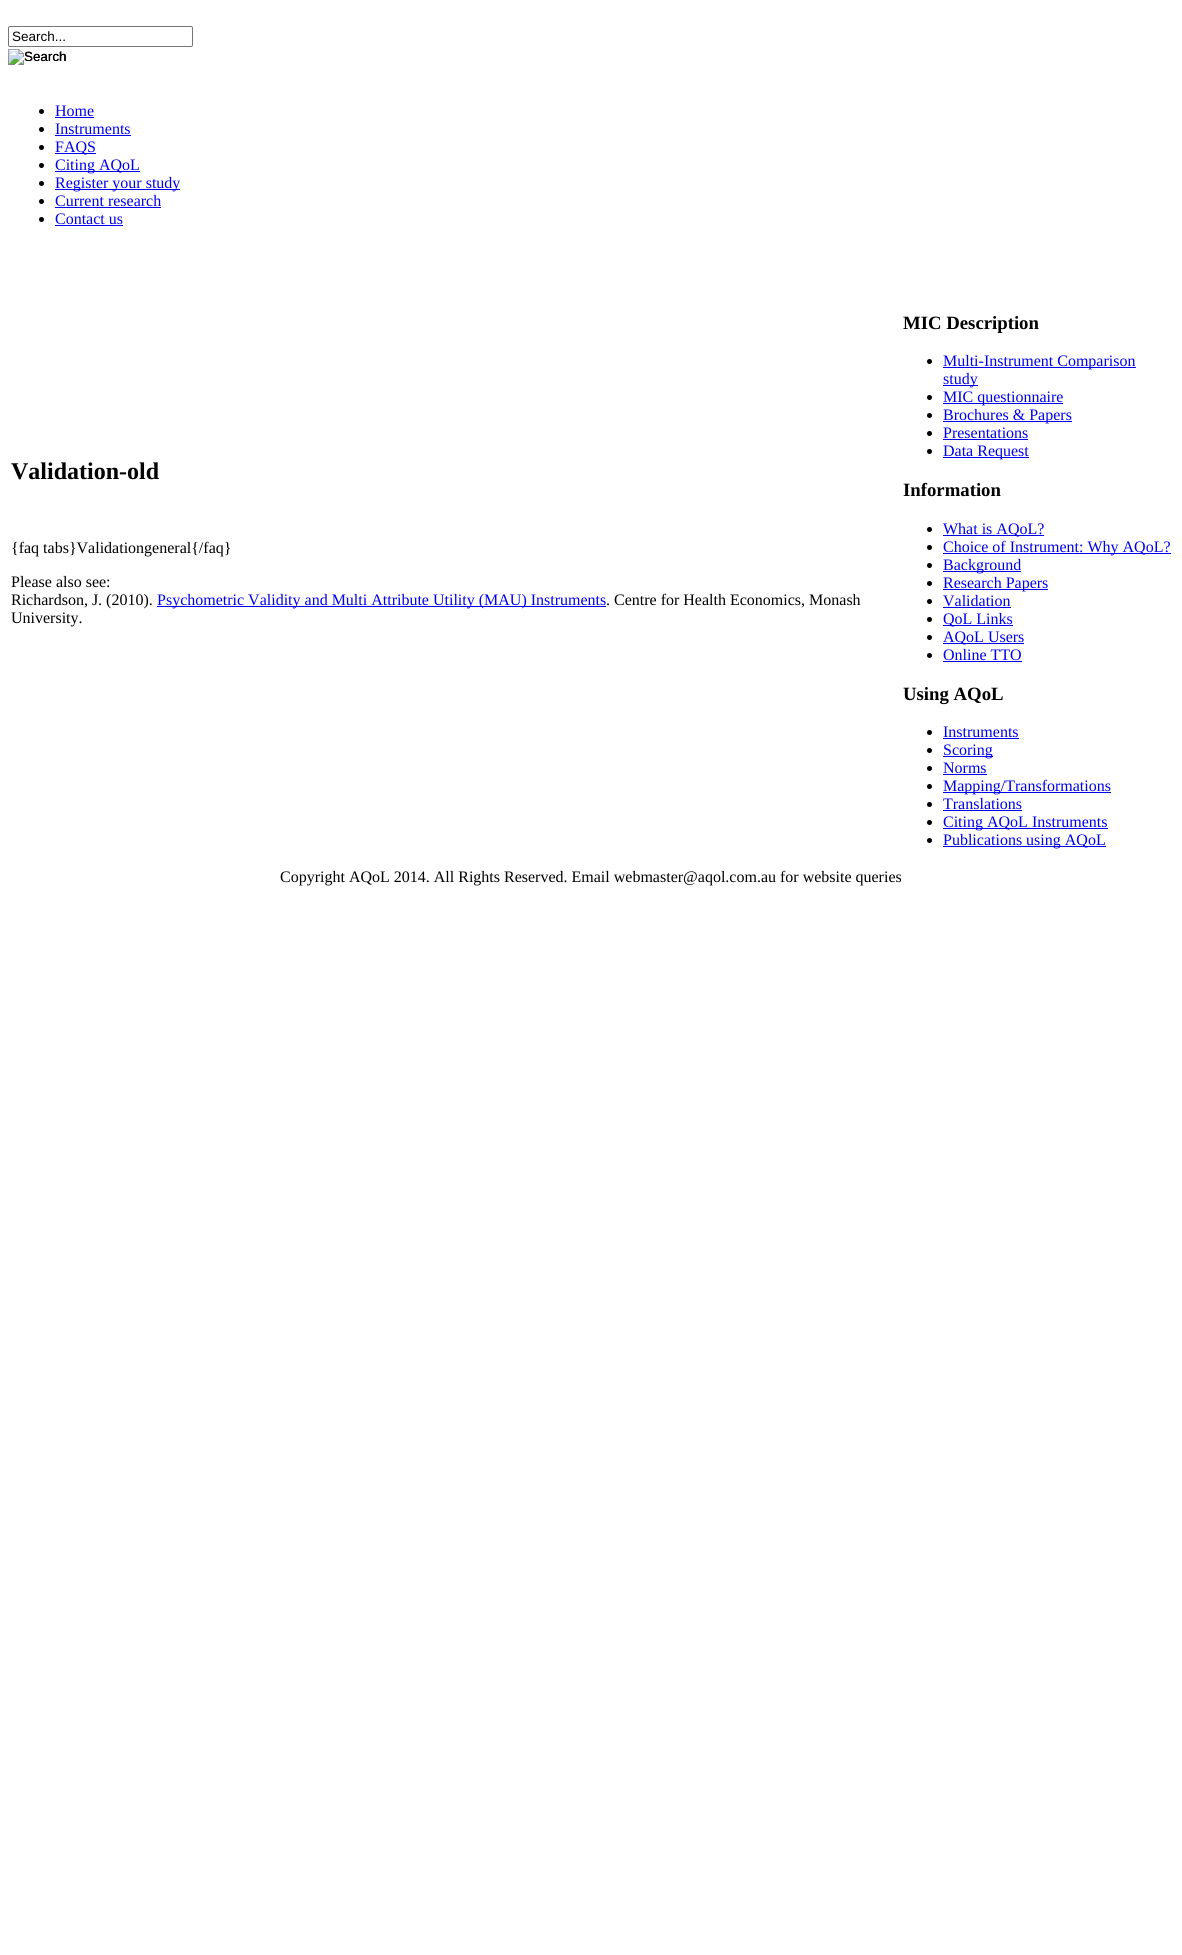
import math
import cairocffi as cairo

surface = cairo.ImageSurface(cairo.FORMAT_RGB24, 1182, 1955)
ctx = cairo.Context(surface)
options = cairo.FontOptions()
options.set_hint_metrics(cairo.HINT_METRICS_OFF)
options.set_hint_style(cairo.HINT_STYLE_NONE)
ctx.set_font_options(options)
ctx.set_miter_limit(4)


def rgb(r, g, b):
    ctx.set_source_rgb(r / 255, g / 255, b / 255)


def face(family, size, italic, bold):
    ctx.select_font_face(family, cairo.FONT_SLANT_ITALIC if italic else cairo.FONT_SLANT_NORMAL, cairo.FONT_WEIGHT_BOLD if bold else cairo.FONT_WEIGHT_NORMAL)
    ctx.set_font_size(size)


def label(x, y, s):
    ctx.move_to(x, y)
    ctx.show_text(s)


def rect(x, y, w, h):
    ctx.rectangle(x, y, w, h)
    ctx.fill()


def rrect(x, y, w, h, r):
    ctx.new_sub_path()
    for i, (u, v) in enumerate([(x + w - r, y + h - r), (x + r, y + h - r), (x + r, y + r), (x + w - r, y + r)]):
        ctx.arc(u, v, r, i * math.pi / 2, (i + 1) * math.pi / 2)
    ctx.close_path()


def image(path, x, y, w, h):
    ctx.save()
    ctx.set_source_surface(cairo.ImageSurface.create_from_png(path), x, y)
    ctx.rectangle(x, y, w, h)
    ctx.fill()
    ctx.restore()


rgb(255, 255, 255)
ctx.paint()
rrect(8.5, 26.5, 184, 20, 1.5)
rgb(118, 118, 118)
ctx.set_line_width(1)
ctx.stroke()
face('Liberation Sans', 13.5, 0, 0)
rgb(0, 0, 0)
label(12, 41, 'Search...')
image('image0.png', 8, 49, 58, 16)
label(24, 61, 'Search')
ctx.new_path()
ctx.arc(41.5, 111.5, 2.5, 0, 2 * math.pi)
ctx.fill()
face('Liberation Serif', 16, 0, 0)
rgb(0, 0, 238)
label(55, 116, 'Home')
rect(55, 117, 39, 1)
rgb(0, 0, 0)
ctx.new_path()
ctx.arc(41.5, 129.5, 2.5, 0, 2 * math.pi)
ctx.fill()
rgb(0, 0, 238)
label(55, 134, 'Instruments')
rect(55, 135, 76, 1)
rgb(0, 0, 0)
ctx.new_path()
ctx.arc(41.5, 147.5, 2.5, 0, 2 * math.pi)
ctx.fill()
rgb(0, 0, 238)
rect(55, 153, 41, 1)
label(55, 152, 'FAQS')
rgb(0, 0, 0)
ctx.new_path()
ctx.arc(41.5, 165.5, 2.5, 0, 2 * math.pi)
ctx.fill()
rgb(0, 0, 238)
rect(55, 171, 85, 1)
label(55, 170, 'Citing AQoL')
rgb(0, 0, 0)
ctx.new_path()
ctx.arc(41.5, 183.5, 2.5, 0, 2 * math.pi)
ctx.fill()
rgb(0, 0, 238)
rect(55, 189, 125, 1)
label(55, 188, 'Register your study')
rgb(0, 0, 0)
ctx.new_path()
ctx.arc(41.5, 201.5, 2.5, 0, 2 * math.pi)
ctx.fill()
rgb(0, 0, 238)
label(55, 206, 'Current research')
rect(55, 207, 106, 1)
rgb(0, 0, 0)
ctx.new_path()
ctx.arc(41.5, 219.5, 2.5, 0, 2 * math.pi)
ctx.fill()
rgb(0, 0, 238)
label(55, 224, 'Contact us')
rect(55, 225, 68, 1)
face('Liberation Serif', 24, 0, 1)
rgb(0, 0, 0)
label(11, 479, 'Validation-old')
face('Liberation Serif', 16, 0, 0)
label(11, 553, '{faq tabs}Validationgeneral{/faq}')
label(11, 587, 'Please also see:')
label(11, 605, 'Richardson, J. (2010).')
rgb(0, 0, 238)
rect(157, 606, 449, 1)
label(157, 605, 'Psychometric Validity and Multi Attribute Utility (MAU) Instruments')
rgb(0, 0, 0)
label(606, 605, '. Centre for Health Economics, Monash')
label(11, 623, 'University.')
face('Liberation Serif', 18.75, 0, 1)
label(903, 329, 'MIC Description')
ctx.new_path()
ctx.arc(929.5, 361.5, 2.5, 0, 2 * math.pi)
ctx.fill()
rgb(0, 0, 238)
rect(943, 367, 193, 1)
face('Liberation Serif', 16, 0, 0)
label(943, 366, 'Multi-Instrument Comparison')
rect(943, 385, 35, 1)
label(943, 384, 'study')
rgb(0, 0, 0)
ctx.new_path()
ctx.arc(929.5, 397.5, 2.5, 0, 2 * math.pi)
ctx.fill()
rgb(0, 0, 238)
rect(943, 403, 120, 1)
label(943, 402, 'MIC questionnaire')
rgb(0, 0, 0)
ctx.new_path()
ctx.arc(929.5, 415.5, 2.5, 0, 2 * math.pi)
ctx.fill()
rgb(0, 0, 238)
rect(943, 421, 129, 1)
label(943, 420, 'Brochures & Papers')
rgb(0, 0, 0)
ctx.new_path()
ctx.arc(929.5, 433.5, 2.5, 0, 2 * math.pi)
ctx.fill()
rgb(0, 0, 238)
label(943, 438, 'Presentations')
rect(943, 439, 85, 1)
rgb(0, 0, 0)
ctx.new_path()
ctx.arc(929.5, 451.5, 2.5, 0, 2 * math.pi)
ctx.fill()
rgb(0, 0, 238)
rect(943, 457, 86, 1)
label(943, 456, 'Data Request')
face('Liberation Serif', 18.75, 0, 1)
rgb(0, 0, 0)
label(903, 496, 'Information')
ctx.new_path()
ctx.arc(929.5, 529.5, 2.5, 0, 2 * math.pi)
ctx.fill()
rgb(0, 0, 238)
rect(943, 535, 101, 1)
face('Liberation Serif', 16, 0, 0)
label(943, 534, 'What is AQoL?')
rgb(0, 0, 0)
ctx.new_path()
ctx.arc(929.5, 547.5, 2.5, 0, 2 * math.pi)
ctx.fill()
rgb(0, 0, 238)
rect(943, 553, 228, 1)
label(943, 552, 'Choice of Instrument: Why AQoL?')
rgb(0, 0, 0)
ctx.new_path()
ctx.arc(929.5, 565.5, 2.5, 0, 2 * math.pi)
ctx.fill()
rgb(0, 0, 238)
rect(943, 571, 78, 1)
label(943, 570, 'Background')
rgb(0, 0, 0)
ctx.new_path()
ctx.arc(929.5, 583.5, 2.5, 0, 2 * math.pi)
ctx.fill()
rgb(0, 0, 238)
rect(943, 589, 105, 1)
label(943, 588, 'Research Papers')
rgb(0, 0, 0)
ctx.new_path()
ctx.arc(929.5, 601.5, 2.5, 0, 2 * math.pi)
ctx.fill()
rgb(0, 0, 238)
label(943, 606, 'Validation')
rect(943, 607, 68, 1)
rgb(0, 0, 0)
ctx.new_path()
ctx.arc(929.5, 619.5, 2.5, 0, 2 * math.pi)
ctx.fill()
rgb(0, 0, 238)
rect(943, 625, 70, 1)
label(943, 624, 'QoL Links')
rgb(0, 0, 0)
ctx.new_path()
ctx.arc(929.5, 637.5, 2.5, 0, 2 * math.pi)
ctx.fill()
rgb(0, 0, 238)
rect(943, 643, 81, 1)
label(943, 642, 'AQoL Users')
rgb(0, 0, 0)
ctx.new_path()
ctx.arc(929.5, 655.5, 2.5, 0, 2 * math.pi)
ctx.fill()
rgb(0, 0, 238)
label(943, 660, 'Online TTO')
rect(943, 661, 79, 1)
face('Liberation Serif', 18.75, 0, 1)
rgb(0, 0, 0)
label(903, 700, 'Using AQoL')
ctx.new_path()
ctx.arc(929.5, 732.5, 2.5, 0, 2 * math.pi)
ctx.fill()
face('Liberation Serif', 16, 0, 0)
rgb(0, 0, 238)
label(943, 737, 'Instruments')
rect(943, 738, 76, 1)
rgb(0, 0, 0)
ctx.new_path()
ctx.arc(929.5, 750.5, 2.5, 0, 2 * math.pi)
ctx.fill()
rgb(0, 0, 238)
rect(943, 756, 50, 1)
label(943, 755, 'Scoring')
rgb(0, 0, 0)
ctx.new_path()
ctx.arc(929.5, 768.5, 2.5, 0, 2 * math.pi)
ctx.fill()
rgb(0, 0, 238)
label(943, 773, 'Norms')
rect(943, 774, 44, 1)
rgb(0, 0, 0)
ctx.new_path()
ctx.arc(929.5, 786.5, 2.5, 0, 2 * math.pi)
ctx.fill()
rgb(0, 0, 238)
rect(943, 792, 168, 1)
label(943, 791, 'Mapping/Transformations')
rgb(0, 0, 0)
ctx.new_path()
ctx.arc(929.5, 804.5, 2.5, 0, 2 * math.pi)
ctx.fill()
rgb(0, 0, 238)
label(943, 809, 'Translations')
rect(943, 810, 79, 1)
rgb(0, 0, 0)
ctx.new_path()
ctx.arc(929.5, 822.5, 2.5, 0, 2 * math.pi)
ctx.fill()
rgb(0, 0, 238)
rect(943, 828, 165, 1)
label(943, 827, 'Citing AQoL Instruments')
rgb(0, 0, 0)
ctx.new_path()
ctx.arc(929.5, 840.5, 2.5, 0, 2 * math.pi)
ctx.fill()
rgb(0, 0, 238)
rect(943, 846, 163, 1)
label(943, 845, 'Publications using AQoL')
rgb(0, 0, 0)
label(280, 882, 'Copyright AQoL 2014. All Rights Reserved. Email webmaster@aqol.com.au for website queries')
surface.write_to_png('render.png')
